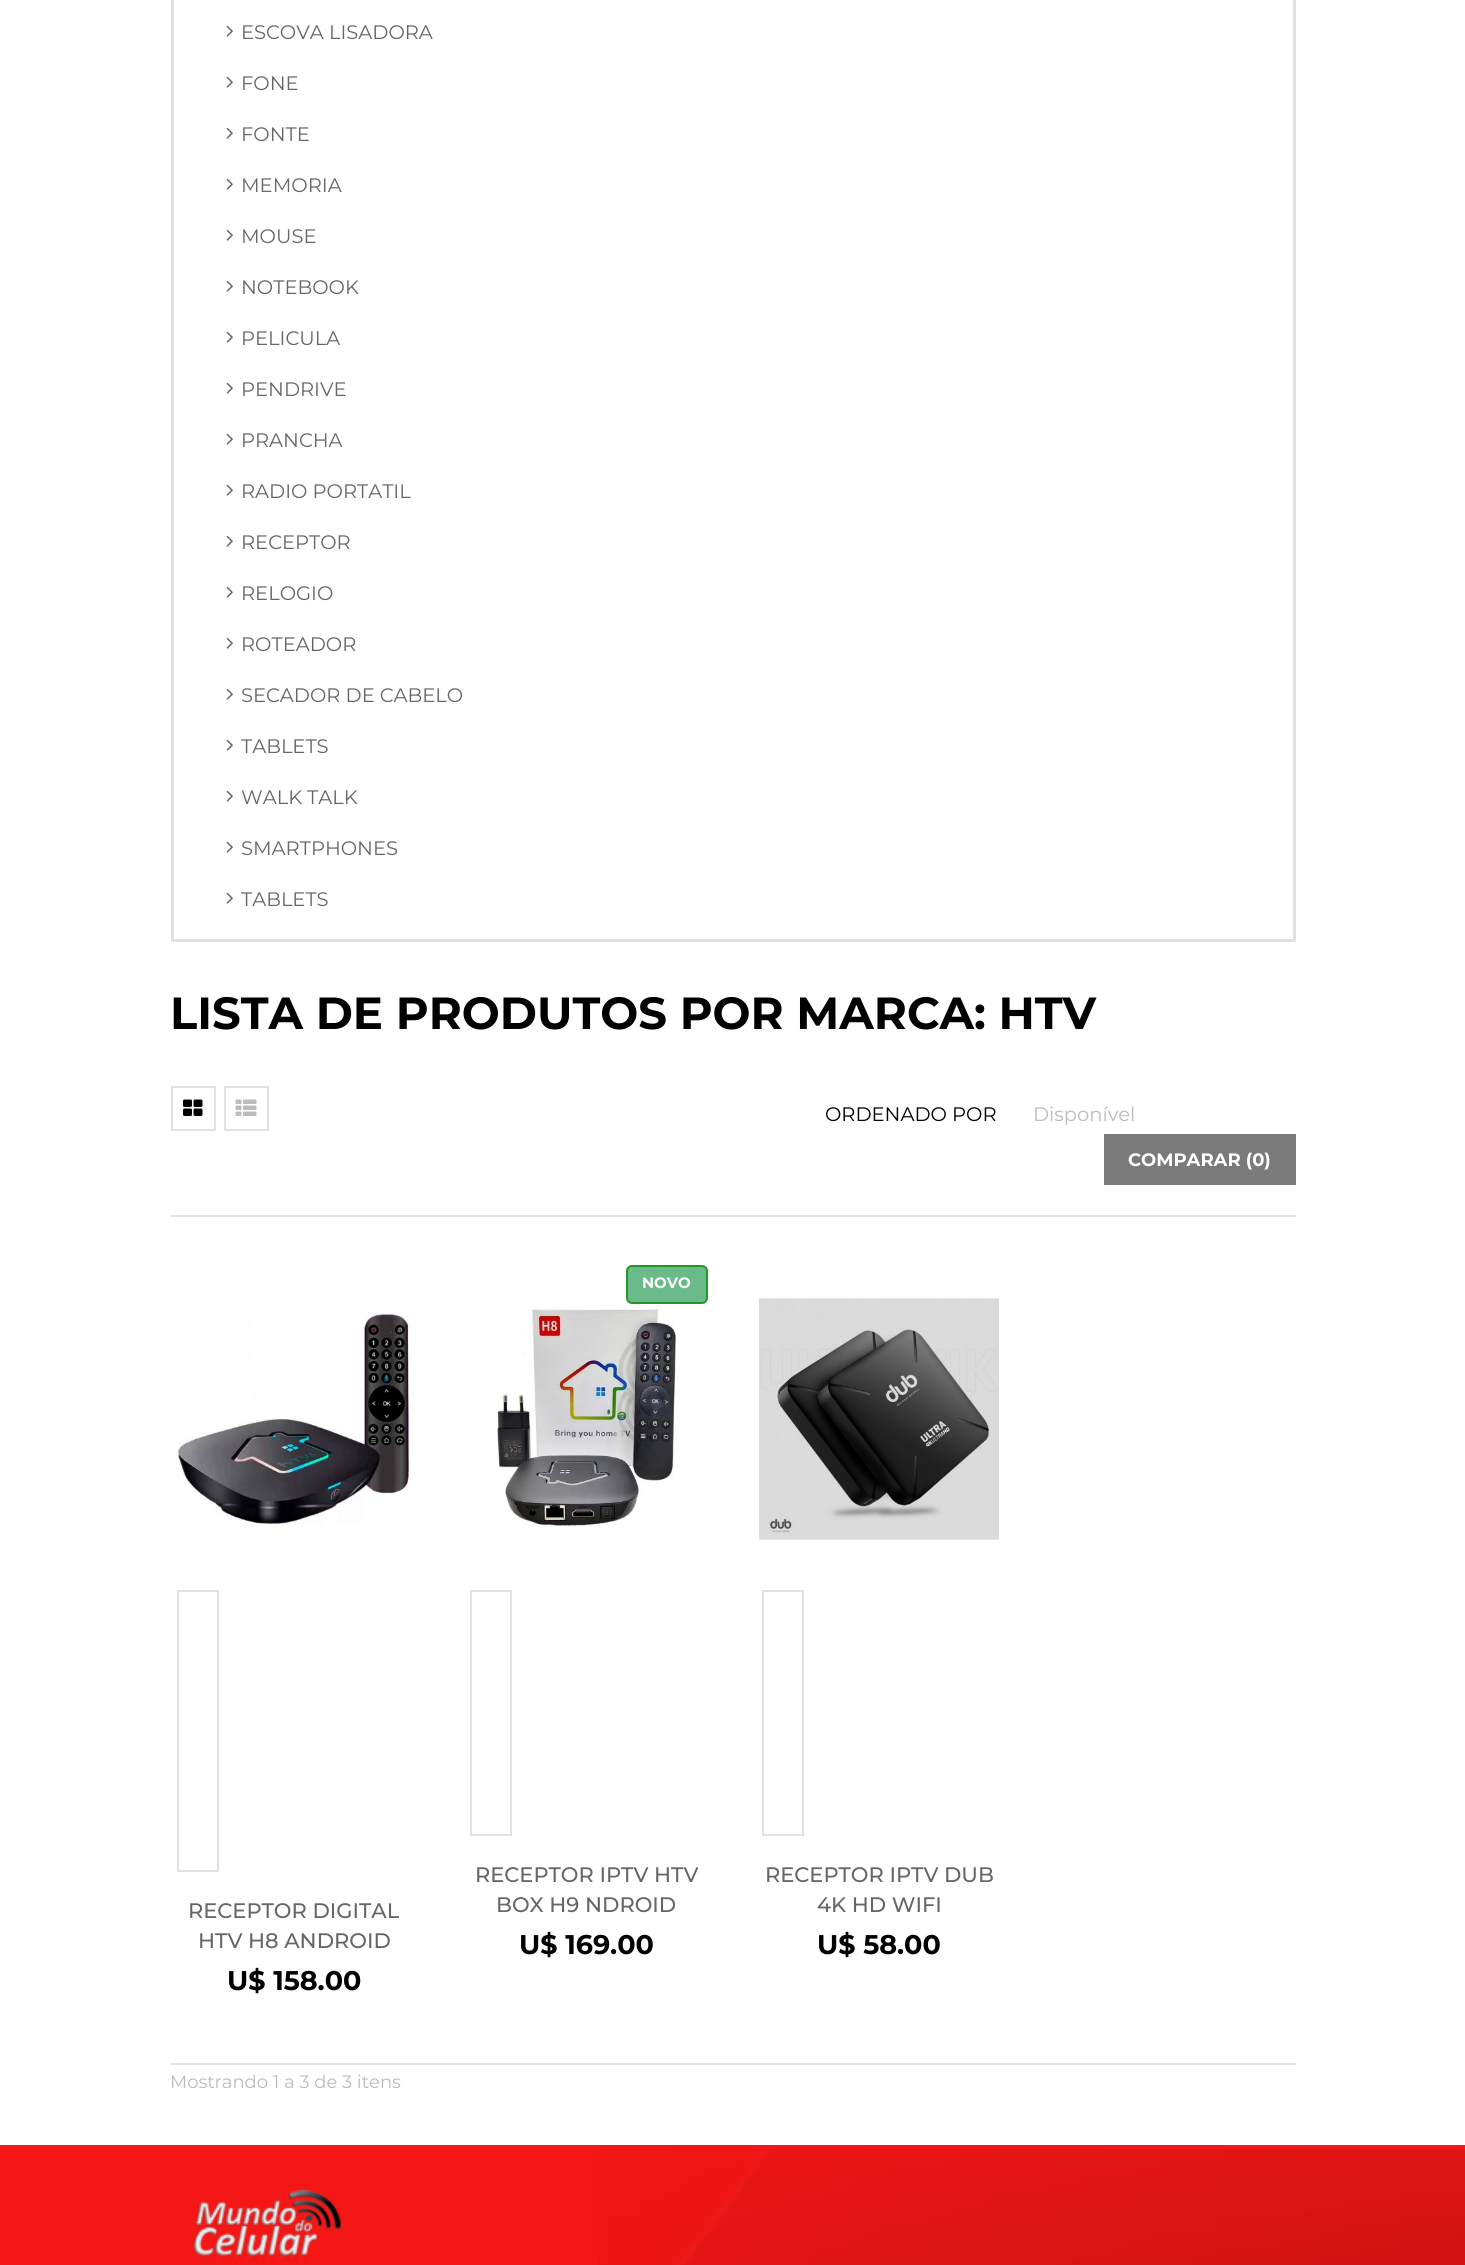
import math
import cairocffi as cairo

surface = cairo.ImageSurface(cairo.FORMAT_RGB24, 1465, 2265)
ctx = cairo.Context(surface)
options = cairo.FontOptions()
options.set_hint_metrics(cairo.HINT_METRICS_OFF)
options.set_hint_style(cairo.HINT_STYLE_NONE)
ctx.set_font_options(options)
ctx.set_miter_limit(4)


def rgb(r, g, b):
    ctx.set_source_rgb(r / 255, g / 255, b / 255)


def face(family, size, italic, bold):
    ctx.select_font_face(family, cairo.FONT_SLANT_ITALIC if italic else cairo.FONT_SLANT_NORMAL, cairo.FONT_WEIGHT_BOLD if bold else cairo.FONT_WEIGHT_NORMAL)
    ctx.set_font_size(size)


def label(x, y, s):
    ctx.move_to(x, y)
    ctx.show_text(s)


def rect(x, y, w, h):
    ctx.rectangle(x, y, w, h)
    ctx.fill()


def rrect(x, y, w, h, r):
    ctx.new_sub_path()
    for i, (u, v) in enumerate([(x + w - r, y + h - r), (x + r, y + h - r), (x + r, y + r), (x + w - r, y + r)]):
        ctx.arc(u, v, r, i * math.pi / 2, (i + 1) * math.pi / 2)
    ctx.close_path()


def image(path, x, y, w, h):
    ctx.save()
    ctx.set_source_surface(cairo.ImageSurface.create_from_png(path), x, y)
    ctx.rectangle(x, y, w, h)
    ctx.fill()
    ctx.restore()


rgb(255, 255, 255)
ctx.paint()
ctx.rectangle(172.5, -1.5, 1122, 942)
rgb(225, 225, 225)
ctx.set_line_width(3)
ctx.stroke()
image('image0.png', 226, 25, 7, 12)
face('Montserrat', 19.5, 0, 0)
rgb(102, 102, 102)
label(241, 39, 'ESCOVA LISADORA')
image('image0.png', 226, 76, 7, 12)
label(241, 90, 'FONE')
image('image0.png', 226, 127, 7, 12)
label(241, 141, 'FONTE')
image('image0.png', 226, 178, 7, 12)
label(241, 192, 'MEMORIA')
image('image0.png', 226, 229, 7, 12)
label(241, 243, 'MOUSE')
image('image0.png', 226, 280, 7, 12)
label(241, 294, 'NOTEBOOK')
image('image0.png', 226, 331, 7, 12)
label(241, 345, 'PELICULA')
image('image0.png', 226, 382, 7, 12)
label(241, 396, 'PENDRIVE')
image('image0.png', 226, 433, 7, 12)
label(241, 447, 'PRANCHA')
image('image0.png', 226, 484, 7, 12)
label(241, 498, 'RADIO PORTATIL')
image('image0.png', 226, 535, 7, 12)
label(241, 549, 'RECEPTOR')
image('image0.png', 226, 586, 7, 12)
label(241, 600, 'RELOGIO')
image('image0.png', 226, 637, 7, 12)
label(241, 651, 'ROTEADOR')
image('image0.png', 226, 688, 7, 12)
label(241, 702, 'SECADOR DE CABELO')
image('image0.png', 226, 739, 7, 12)
label(241, 753, 'TABLETS')
image('image0.png', 226, 790, 7, 12)
label(241, 804, 'WALK TALK')
image('image0.png', 226, 841, 7, 12)
label(241, 855, 'SMARTPHONES')
image('image0.png', 226, 892, 7, 12)
label(241, 906, 'TABLETS')
face('Montserrat', 45, 0, 1)
rgb(0, 0, 0)
label(170, 1029, 'LISTA DE PRODUTOS POR MARCA: HTV')
rgb(225, 225, 225)
rect(171, 1215, 1125, 2)
ctx.rectangle(172, 1087, 43, 43)
ctx.set_line_width(2)
ctx.stroke()
image('image1.png', 183, 1099, 20, 17)
ctx.rectangle(225, 1087, 43, 43)
ctx.stroke()
image('image2.png', 235, 1099, 22, 17)
face('Montserrat', 19.5, 0, 0)
rgb(0, 0, 0)
label(825, 1121, 'ORDENADO POR')
rgb(187, 187, 187)
label(1033, 1121, 'Disponível')
rgb(122, 122, 122)
rect(1104, 1134, 192, 51)
face('Montserrat', 18, 0, 1)
rgb(255, 255, 255)
label(1128, 1166, 'COMPARAR (0)')
image('image3.png', 178, 1312, 235, 213)
ctx.rectangle(178, 1591, 40, 280)
rgb(225, 225, 225)
ctx.stroke()
face('Montserrat Medium', 21, 0, 0)
rgb(102, 102, 102)
label(188, 1918, 'RECEPTOR DIGITAL')
label(198, 1948, 'HTV H8 ANDROID')
face('Montserrat', 27, 0, 1)
rgb(0, 0, 0)
label(227, 1990, 'U$ 158.00')
rgb(107, 186, 137)
rrect(627, 1266, 80, 37, 5)
ctx.fill_preserve()
rgb(35, 152, 42)
ctx.stroke()
face('Montserrat', 15, 0, 1)
rgb(255, 255, 255)
label(642, 1288, 'NOVO')
image('image4.png', 497, 1306, 179, 220)
ctx.rectangle(471, 1591, 40, 244)
rgb(225, 225, 225)
ctx.stroke()
face('Montserrat Medium', 21, 0, 0)
rgb(102, 102, 102)
label(475, 1882, 'RECEPTOR IPTV HTV')
label(496, 1912, 'BOX H9 NDROID')
face('Montserrat', 27, 0, 1)
rgb(0, 0, 0)
label(519, 1954, 'U$ 169.00')
image('image5.png', 759, 1298, 240, 242)
ctx.rectangle(763, 1591, 40, 244)
rgb(225, 225, 225)
ctx.stroke()
face('Montserrat Medium', 21, 0, 0)
rgb(102, 102, 102)
label(765, 1882, 'RECEPTOR IPTV DUB')
label(817, 1912, '4K HD WIFI')
face('Montserrat', 27, 0, 1)
rgb(0, 0, 0)
label(817, 1954, 'U$ 58.00')
rgb(225, 225, 225)
rect(171, 2063, 1125, 2)
face('Montserrat', 18, 0, 0)
rgb(187, 187, 187)
label(170, 2088, 'Mostrando 1 a 3 de 3 itens')
rgb(245, 22, 22)
rect(0, 2145, 1465, 120)
image('image6.png', 599, 2148, 866, 117)
image('image7.png', 193, 2190, 148, 72)
surface.write_to_png('render.png')
